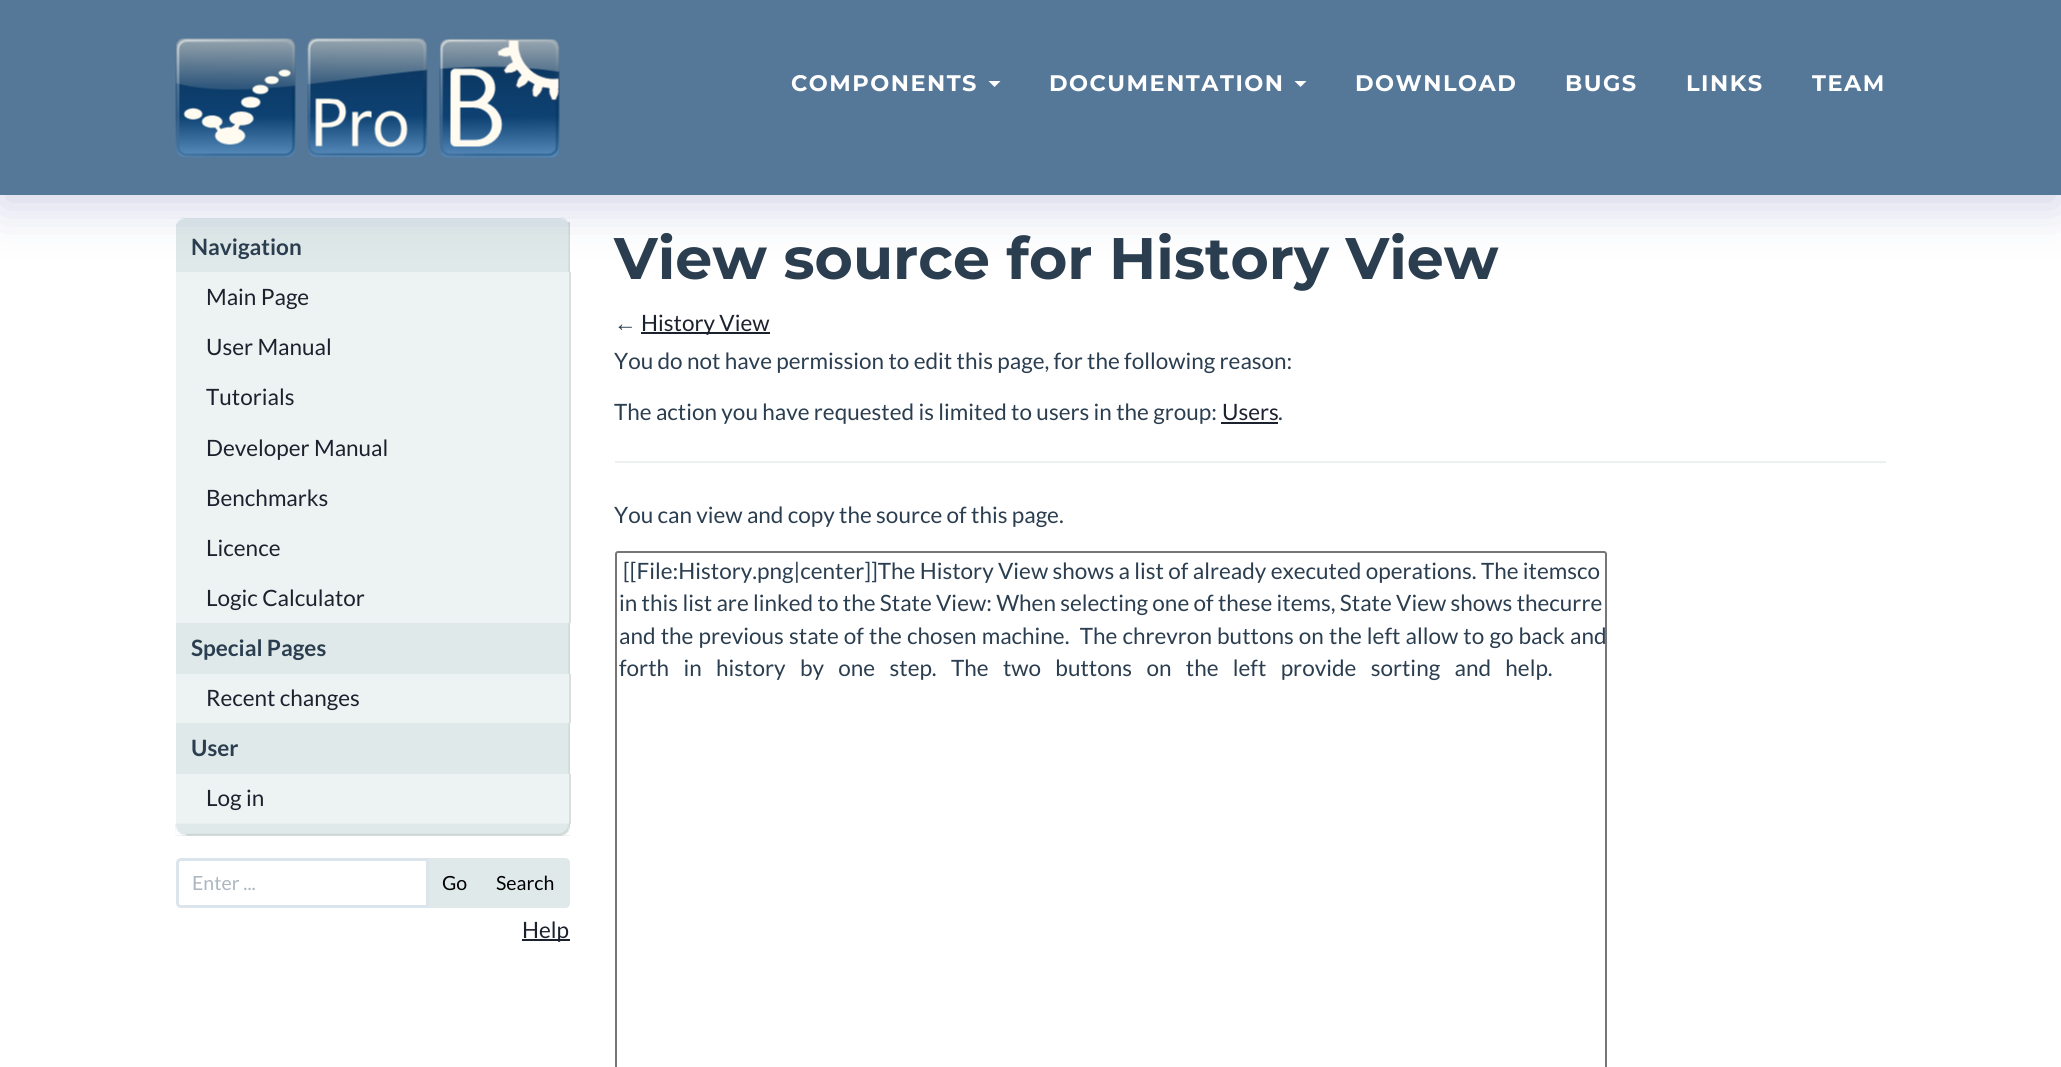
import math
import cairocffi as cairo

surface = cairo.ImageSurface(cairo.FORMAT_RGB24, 2061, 1067)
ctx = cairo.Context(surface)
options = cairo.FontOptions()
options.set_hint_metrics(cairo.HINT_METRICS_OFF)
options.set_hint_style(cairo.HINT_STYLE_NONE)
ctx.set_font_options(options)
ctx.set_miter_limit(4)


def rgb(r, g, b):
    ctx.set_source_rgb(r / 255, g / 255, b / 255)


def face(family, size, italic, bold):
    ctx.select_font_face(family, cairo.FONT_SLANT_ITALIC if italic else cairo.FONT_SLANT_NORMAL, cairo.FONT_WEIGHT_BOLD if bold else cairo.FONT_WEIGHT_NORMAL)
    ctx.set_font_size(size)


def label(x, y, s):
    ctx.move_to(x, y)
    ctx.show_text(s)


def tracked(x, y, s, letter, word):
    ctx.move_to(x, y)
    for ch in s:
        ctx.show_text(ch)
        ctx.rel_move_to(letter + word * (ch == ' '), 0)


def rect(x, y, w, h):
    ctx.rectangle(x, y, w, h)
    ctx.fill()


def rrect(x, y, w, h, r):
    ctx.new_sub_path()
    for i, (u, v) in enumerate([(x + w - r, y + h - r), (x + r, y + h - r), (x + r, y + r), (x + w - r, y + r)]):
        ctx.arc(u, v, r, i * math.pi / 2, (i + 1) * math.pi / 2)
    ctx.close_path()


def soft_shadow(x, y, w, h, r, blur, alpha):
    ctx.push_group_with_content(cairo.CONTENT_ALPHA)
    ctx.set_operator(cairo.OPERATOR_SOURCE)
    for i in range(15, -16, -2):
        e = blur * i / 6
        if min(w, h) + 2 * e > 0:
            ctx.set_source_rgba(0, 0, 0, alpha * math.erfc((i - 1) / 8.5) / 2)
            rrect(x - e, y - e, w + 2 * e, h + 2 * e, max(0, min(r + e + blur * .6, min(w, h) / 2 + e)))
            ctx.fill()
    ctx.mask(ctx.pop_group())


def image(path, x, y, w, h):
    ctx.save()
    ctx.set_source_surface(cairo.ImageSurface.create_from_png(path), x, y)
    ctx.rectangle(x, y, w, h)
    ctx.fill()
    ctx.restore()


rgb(255, 255, 255)
ctx.paint()
rgb(224, 233, 233)
rect(176, 218, 394, 618)
image('image1.png', 568, 217, 2, 619)
image('image2.png', 175, 217, 395, 7)
image('image3.png', 177, 217, 7, 6)
rgb(237, 242, 242)
rect(176, 272, 393, 351)
rgb(221, 221, 221)
rect(569, 272, 2, 351)
rgb(31, 38, 135)
soft_shadow(0, 12, 2061, 195, 0, 24, 0.2)
rgb(85, 119, 152)
rect(0, 0, 2061, 195)
image('image0.png', 175, 38, 385, 120)
face('Montserrat', 22.5, 0, 1)
rgb(255, 255, 255)
tracked(791, 91, 'COMPONENTS', 1.5, 0)
ctx.new_path()
ctx.move_to(988.5, 81)
ctx.line_to(1000.5, 81)
ctx.line_to(994.5, 87)
ctx.close_path()
ctx.fill()
tracked(1049, 91, 'DOCUMENTATION', 1.5, 0)
ctx.new_path()
ctx.move_to(1294.5, 81)
ctx.line_to(1306.5, 81)
ctx.line_to(1300.5, 87)
ctx.close_path()
ctx.fill()
tracked(1355, 91, 'DOWNLOAD', 1.5, 0)
tracked(1565, 91, 'BUGS', 1.5, 0)
tracked(1686, 91, 'LINKS', 1.5, 0)
tracked(1812, 91, 'TEAM', 1.5, 0)
face('Lato', 22.5, 0, 1)
rgb(43, 62, 80)
label(191, 255, 'Navigation')
face('Lato', 22.5, 0, 0)
rgb(28, 33, 46)
label(206, 305, 'Main Page')
label(206, 355, 'User Manual')
label(206, 405, 'Tutorials')
label(206, 456, 'Developer Manual')
label(206, 506, 'Benchmarks')
label(206, 556, 'Licence')
label(206, 606, 'Logic Calculator')
face('Lato', 22.5, 0, 1)
rgb(43, 62, 80)
label(191, 656, 'Special Pages')
rgb(237, 242, 242)
rect(176, 674, 393, 49)
rgb(221, 221, 221)
rect(569, 674, 2, 49)
face('Lato', 22.5, 0, 0)
rgb(28, 33, 46)
label(206, 706, 'Recent changes')
face('Lato', 22.5, 0, 1)
rgb(43, 62, 80)
label(191, 756, 'User')
rgb(237, 242, 242)
rect(176, 774, 393, 50)
rgb(221, 221, 221)
rect(569, 774, 2, 50)
face('Lato', 22.5, 0, 0)
rgb(28, 33, 46)
label(206, 806, 'Log in')
image('image4.png', 175, 823, 395, 13)
image('image5.png', 175, 829, 12, 7)
ctx.new_path()
ctx.move_to(181, 859.5)
ctx.line_to(427.5, 859.5)
ctx.line_to(427.5, 906.5)
ctx.line_to(181, 906.5)
ctx.curve_to(179, 906.5, 177.5, 905, 177.5, 903)
ctx.line_to(177.5, 863)
ctx.curve_to(177.5, 861, 179, 859.5, 181, 859.5)
ctx.close_path()
rgb(220, 228, 236)
ctx.set_line_width(3)
ctx.stroke()
face('Lato', 19.5, 0, 0)
rgb(172, 182, 192)
label(192, 890, 'Enter ...')
rgb(224, 233, 233)
rect(429, 858, 53, 50)
rgb(0, 0, 0)
label(442, 890, 'Go')
rgb(224, 233, 233)
ctx.new_path()
ctx.move_to(482, 858)
ctx.line_to(565, 858)
ctx.curve_to(568, 858, 570, 860, 570, 863)
ctx.line_to(570, 903)
ctx.curve_to(570, 906, 568, 908, 565, 908)
ctx.line_to(482, 908)
ctx.close_path()
ctx.fill()
rgb(0, 0, 0)
label(496, 890, 'Search')
rgb(28, 33, 46)
rect(522, 939, 48, 2)
face('Lato', 22.5, 0, 0)
label(522, 938, 'Help')
face('Montserrat', 58.5, 0, 1)
rgb(43, 62, 80)
label(614, 279, 'View source for History View')
face('Liberation Sans', 22.5, 0, 0)
label(614, 331, '←')
rgb(28, 33, 46)
rect(641, 332, 129, 2)
face('Lato', 22.5, 0, 0)
label(641, 331, 'History View')
rgb(43, 62, 80)
label(614, 369, 'You do not have permission to edit this page, for the following reason:')
label(614, 420, 'The action you have requested is limited to users in the group:')
rgb(28, 33, 46)
label(1222, 420, 'Users')
rect(1221, 422, 57, 2)
rgb(43, 62, 80)
label(1278, 420, '.')
rgb(236, 240, 241)
rect(615, 461, 1271, 2)
rgb(43, 62, 80)
label(614, 523, 'You can view and copy the source of this page.')
rrect(616, 552, 990, 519, 2)
rgb(118, 118, 118)
ctx.set_line_width(2)
ctx.stroke()
rgb(43, 62, 80)
label(623, 579, '[[File:History.png|center]]The History View shows a list of already executed operations. The itemsco')
label(619, 611, 'in this list are linked to the State View: When selecting one of these items, State View shows thecurre')
tracked(619, 644, 'and the previous state of the chosen machine.  The chrevron buttons on the left allow to go back', 0, 0.8)
label(1570, 644, 'and')
tracked(619, 676, 'forth in history by one step. The two buttons on the left provide sorting and help.', 0, 10)
surface.write_to_png('render.png')
